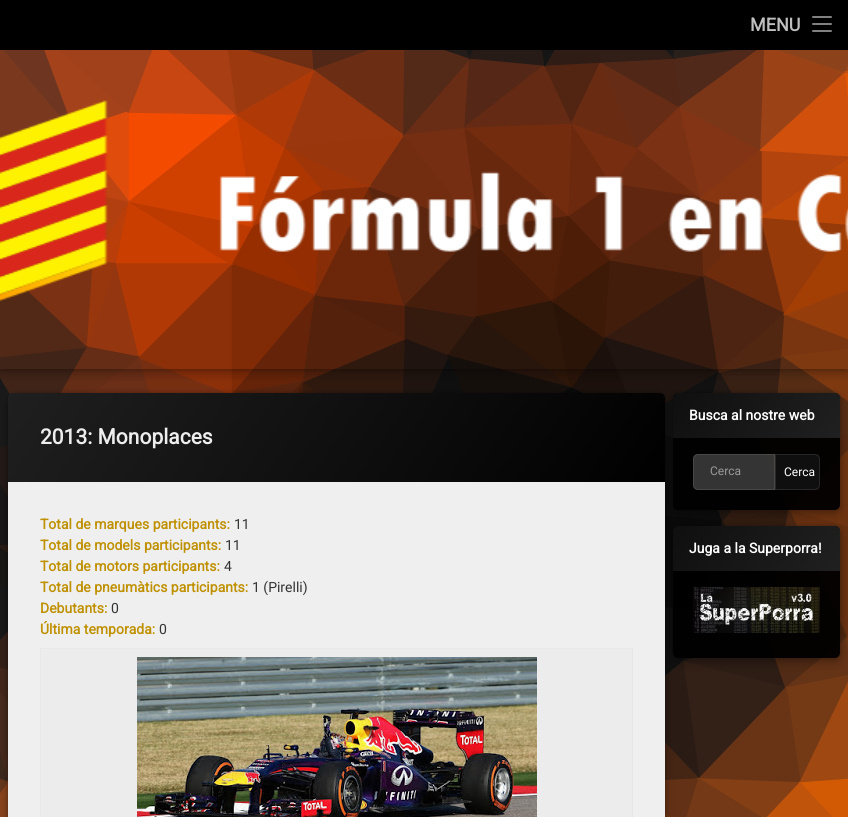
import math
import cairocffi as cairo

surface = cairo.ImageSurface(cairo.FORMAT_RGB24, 848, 817)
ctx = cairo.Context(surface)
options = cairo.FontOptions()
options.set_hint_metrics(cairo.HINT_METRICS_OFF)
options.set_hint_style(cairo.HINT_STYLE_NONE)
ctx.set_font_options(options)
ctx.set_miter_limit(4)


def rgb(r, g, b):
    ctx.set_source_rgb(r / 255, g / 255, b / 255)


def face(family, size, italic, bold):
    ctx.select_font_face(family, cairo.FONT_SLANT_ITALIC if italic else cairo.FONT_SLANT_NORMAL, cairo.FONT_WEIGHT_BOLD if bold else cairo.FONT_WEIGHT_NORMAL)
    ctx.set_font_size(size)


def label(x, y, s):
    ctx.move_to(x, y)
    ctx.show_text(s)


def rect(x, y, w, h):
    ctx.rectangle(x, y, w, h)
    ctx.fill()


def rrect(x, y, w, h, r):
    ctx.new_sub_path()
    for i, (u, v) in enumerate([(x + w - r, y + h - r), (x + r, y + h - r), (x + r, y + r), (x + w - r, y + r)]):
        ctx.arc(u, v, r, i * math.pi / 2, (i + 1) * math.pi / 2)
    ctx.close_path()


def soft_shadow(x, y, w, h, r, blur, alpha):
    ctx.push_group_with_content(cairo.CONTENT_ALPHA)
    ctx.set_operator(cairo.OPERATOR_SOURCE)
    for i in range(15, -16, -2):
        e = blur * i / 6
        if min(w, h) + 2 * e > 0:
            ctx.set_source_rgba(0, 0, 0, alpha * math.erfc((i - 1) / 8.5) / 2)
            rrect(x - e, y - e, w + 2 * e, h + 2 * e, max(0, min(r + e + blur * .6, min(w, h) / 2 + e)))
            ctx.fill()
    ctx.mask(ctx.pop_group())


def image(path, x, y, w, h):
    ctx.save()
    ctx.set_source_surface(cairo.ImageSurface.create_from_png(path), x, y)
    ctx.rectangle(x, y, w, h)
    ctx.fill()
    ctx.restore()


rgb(255, 255, 255)
ctx.paint()
image('image3.png', 0, 50, 848, 767)
ctx.save()
ctx.rectangle(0, 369, 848, 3)
ctx.clip()
rgb(0, 0, 0)
soft_shadow(0, 50, 848, 319, 0, 2.5, 0.25)
ctx.restore()
ctx.save()
ctx.rectangle(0, 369, 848, 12)
ctx.clip()
rgb(0, 0, 0)
soft_shadow(0, 55, 848, 319, 0, 5, 0.25)
ctx.restore()
rgb(0, 0, 0)
rect(0, 0, 848, 50)
face('Roboto', 18, 0, 1)
rgb(191, 191, 191)
label(750, 31, 'MENU')
rgb(128, 128, 128)
rrect(812, 16, 20, 2, 1)
ctx.fill()
rrect(812, 23, 20, 2, 1)
ctx.fill()
rrect(812, 30, 20, 2, 1)
ctx.fill()
image('image0.png', 0, 100, 848, 202)
ctx.save()
ctx.set_fill_rule(cairo.FILL_RULE_EVEN_ODD)
ctx.new_path()
ctx.move_to(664, 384)
ctx.line_to(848, 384)
ctx.line_to(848, 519)
ctx.line_to(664, 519)
ctx.close_path()
ctx.move_to(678, 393)
ctx.line_to(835, 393)
ctx.curve_to(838, 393, 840, 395, 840, 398)
ctx.line_to(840, 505)
ctx.curve_to(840, 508, 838, 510, 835, 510)
ctx.line_to(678, 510)
ctx.curve_to(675, 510, 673, 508, 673, 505)
ctx.line_to(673, 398)
ctx.curve_to(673, 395, 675, 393, 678, 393)
ctx.close_path()
ctx.clip()
rgb(0, 0, 0)
soft_shadow(673, 393, 167, 117, 5, 2.5, 0.25)
ctx.restore()
ctx.save()
ctx.set_fill_rule(cairo.FILL_RULE_EVEN_ODD)
ctx.new_path()
ctx.move_to(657, 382)
ctx.line_to(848, 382)
ctx.line_to(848, 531)
ctx.line_to(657, 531)
ctx.close_path()
ctx.move_to(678, 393)
ctx.line_to(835, 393)
ctx.curve_to(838, 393, 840, 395, 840, 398)
ctx.line_to(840, 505)
ctx.curve_to(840, 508, 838, 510, 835, 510)
ctx.line_to(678, 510)
ctx.curve_to(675, 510, 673, 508, 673, 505)
ctx.line_to(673, 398)
ctx.curve_to(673, 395, 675, 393, 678, 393)
ctx.close_path()
ctx.clip()
rgb(0, 0, 0)
soft_shadow(673, 398, 167, 117, 5, 5, 0.25)
ctx.restore()
ctx.set_source_rgba(0, 0, 0, 0.95)
rrect(673, 393, 167, 117, 5)
ctx.fill()
gradient = cairo.LinearGradient(690, 369, 823, 462)
gradient.add_color_stop_rgba(0, 0.059, 0.059, 0.059, 1)
gradient.add_color_stop_rgba(1, 0.125, 0.125, 0.125, 1)
ctx.set_source(gradient)
ctx.new_path()
ctx.move_to(678, 393)
ctx.line_to(835, 393)
ctx.curve_to(838, 393, 840, 395, 840, 398)
ctx.line_to(840, 438)
ctx.line_to(673, 438)
ctx.line_to(673, 398)
ctx.curve_to(673, 395, 675, 393, 678, 393)
ctx.close_path()
ctx.fill()
ctx.save()
ctx.set_fill_rule(cairo.FILL_RULE_EVEN_ODD)
ctx.new_path()
ctx.move_to(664, 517)
ctx.line_to(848, 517)
ctx.line_to(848, 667)
ctx.line_to(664, 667)
ctx.close_path()
ctx.move_to(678, 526)
ctx.line_to(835, 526)
ctx.curve_to(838, 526, 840, 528, 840, 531)
ctx.line_to(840, 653)
ctx.curve_to(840, 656, 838, 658, 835, 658)
ctx.line_to(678, 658)
ctx.curve_to(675, 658, 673, 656, 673, 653)
ctx.line_to(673, 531)
ctx.curve_to(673, 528, 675, 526, 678, 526)
ctx.close_path()
ctx.clip()
rgb(0, 0, 0)
soft_shadow(673, 526, 167, 132, 5, 2.5, 0.25)
ctx.restore()
ctx.save()
ctx.set_fill_rule(cairo.FILL_RULE_EVEN_ODD)
ctx.new_path()
ctx.move_to(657, 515)
ctx.line_to(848, 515)
ctx.line_to(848, 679)
ctx.line_to(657, 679)
ctx.close_path()
ctx.move_to(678, 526)
ctx.line_to(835, 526)
ctx.curve_to(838, 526, 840, 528, 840, 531)
ctx.line_to(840, 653)
ctx.curve_to(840, 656, 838, 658, 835, 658)
ctx.line_to(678, 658)
ctx.curve_to(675, 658, 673, 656, 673, 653)
ctx.line_to(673, 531)
ctx.curve_to(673, 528, 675, 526, 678, 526)
ctx.close_path()
ctx.clip()
rgb(0, 0, 0)
soft_shadow(673, 531, 167, 132, 5, 5, 0.25)
ctx.restore()
ctx.set_source_rgba(0, 0, 0, 0.95)
rrect(673, 526, 167, 132, 5)
ctx.fill()
gradient = cairo.LinearGradient(690, 502, 823, 595)
gradient.add_color_stop_rgba(0, 0.059, 0.059, 0.059, 1)
gradient.add_color_stop_rgba(1, 0.125, 0.125, 0.125, 1)
ctx.set_source(gradient)
ctx.new_path()
ctx.move_to(678, 526)
ctx.line_to(835, 526)
ctx.curve_to(838, 526, 840, 528, 840, 531)
ctx.line_to(840, 571)
ctx.line_to(673, 571)
ctx.line_to(673, 531)
ctx.curve_to(673, 528, 675, 526, 678, 526)
ctx.close_path()
ctx.fill()
rgb(0, 0, 0)
soft_shadow(8, 393, 657, 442, 10, 2.5, 0.25)
soft_shadow(8, 398, 657, 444, 10, 5, 0.25)
rgb(239, 239, 239)
ctx.new_path()
ctx.move_to(18, 393)
ctx.line_to(655, 393)
ctx.curve_to(660.5, 393, 665, 397.5, 665, 403)
ctx.line_to(665, 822)
ctx.curve_to(665, 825, 663, 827, 660, 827)
ctx.line_to(13, 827)
ctx.curve_to(10, 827, 8, 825, 8, 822)
ctx.line_to(8, 403)
ctx.curve_to(8, 397.5, 12.5, 393, 18, 393)
ctx.close_path()
ctx.fill()
gradient = cairo.LinearGradient(95, 269, 578, 606)
gradient.add_color_stop_rgba(0, 0.122, 0.122, 0.122, 1)
gradient.add_color_stop_rgba(1, 0, 0, 0, 1)
ctx.set_source(gradient)
ctx.new_path()
ctx.move_to(13, 393)
ctx.line_to(660, 393)
ctx.curve_to(663, 393, 665, 395, 665, 398)
ctx.line_to(665, 482)
ctx.line_to(8, 482)
ctx.line_to(8, 398)
ctx.curve_to(8, 395, 10, 393, 13, 393)
ctx.close_path()
ctx.fill()
face('Roboto', 21, 0, 1)
rgb(238, 238, 238)
label(40, 444, '2013: Monoplaces')
face('Roboto', 14, 0, 1)
rgb(191, 144, 0)
label(40, 529, 'Total de marques participants:')
face('Roboto', 14, 0, 0)
rgb(51, 51, 51)
label(234, 529, '11')
face('Roboto', 14, 0, 1)
rgb(191, 144, 0)
label(40, 550, 'Total de models participants:')
face('Roboto', 14, 0, 0)
rgb(51, 51, 51)
label(225, 550, '11')
face('Roboto', 14, 0, 1)
rgb(191, 144, 0)
label(40, 571, 'Total de motors participants:')
face('Roboto', 14, 0, 0)
rgb(51, 51, 51)
label(224, 571, '4')
face('Roboto', 14, 0, 1)
rgb(191, 144, 0)
label(40, 592, 'Total de pneumàtics participants:')
face('Roboto', 14, 0, 0)
rgb(51, 51, 51)
label(252, 592, '1 (Pirelli)')
face('Roboto', 14, 0, 1)
rgb(191, 144, 0)
label(40, 613, 'Debutants:')
face('Roboto', 14, 0, 0)
rgb(51, 51, 51)
label(111, 613, '0')
face('Roboto', 14, 0, 1)
rgb(191, 144, 0)
label(40, 634, 'Última temporada:')
face('Roboto', 14, 0, 0)
rgb(51, 51, 51)
label(159, 634, '0')
rgb(236, 236, 236)
rect(41, 649, 592, 168)
rgb(232, 232, 232)
rect(40, 648, 593, 1)
ctx.set_source_rgba(0.667, 0.667, 0.667, 0.1)
rect(632, 648, 1, 169)
rect(40, 648, 1, 169)
image('image1.png', 137, 657, 400, 160)
face('Roboto', 14, 0, 1)
rgb(255, 255, 255)
label(689, 420, 'Busca al nostre web')
ctx.set_source_rgba(1, 1, 1, 0.2)
ctx.new_path()
ctx.move_to(698, 454)
ctx.line_to(775, 454)
ctx.line_to(775, 490)
ctx.line_to(698, 490)
ctx.curve_to(695, 490, 693, 488, 693, 485)
ctx.line_to(693, 459)
ctx.curve_to(693, 456, 695, 454, 698, 454)
ctx.close_path()
ctx.fill()
ctx.new_path()
ctx.move_to(698, 454.5)
ctx.line_to(774.5, 454.5)
ctx.line_to(774.5, 489.5)
ctx.line_to(698, 489.5)
ctx.curve_to(695.5, 489.5, 693.5, 487.5, 693.5, 485)
ctx.line_to(693.5, 459)
ctx.curve_to(693.5, 456.5, 695.5, 454.5, 698, 454.5)
ctx.close_path()
ctx.set_source_rgba(1, 1, 1, 0.1)
ctx.set_line_width(1)
ctx.stroke()
face('Roboto', 12, 0, 0)
rgb(154, 153, 153)
label(710, 475, 'Cerca')
rgb(15, 15, 15)
ctx.new_path()
ctx.move_to(775, 454)
ctx.line_to(815, 454)
ctx.curve_to(818, 454, 820, 456, 820, 459)
ctx.line_to(820, 485)
ctx.curve_to(820, 488, 818, 490, 815, 490)
ctx.line_to(775, 490)
ctx.close_path()
ctx.fill()
ctx.new_path()
ctx.move_to(775.5, 454.5)
ctx.line_to(815, 454.5)
ctx.curve_to(817.5, 454.5, 819.5, 456.5, 819.5, 459)
ctx.line_to(819.5, 485)
ctx.curve_to(819.5, 487.5, 817.5, 489.5, 815, 489.5)
ctx.line_to(775.5, 489.5)
ctx.close_path()
ctx.set_source_rgba(1, 1, 1, 0.1)
ctx.stroke()
rgb(255, 255, 255)
label(784, 476, 'Cerca')
face('Roboto', 14, 0, 1)
label(689, 553, 'Juga a la Superporra!')
image('image2.png', 693, 587, 127, 46)
surface.write_to_png('render.png')
